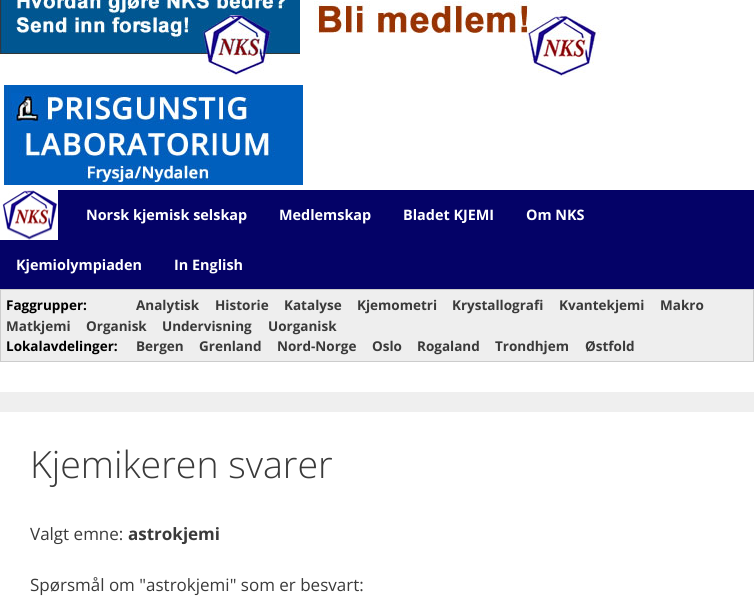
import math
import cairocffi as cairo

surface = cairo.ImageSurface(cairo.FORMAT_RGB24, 754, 603)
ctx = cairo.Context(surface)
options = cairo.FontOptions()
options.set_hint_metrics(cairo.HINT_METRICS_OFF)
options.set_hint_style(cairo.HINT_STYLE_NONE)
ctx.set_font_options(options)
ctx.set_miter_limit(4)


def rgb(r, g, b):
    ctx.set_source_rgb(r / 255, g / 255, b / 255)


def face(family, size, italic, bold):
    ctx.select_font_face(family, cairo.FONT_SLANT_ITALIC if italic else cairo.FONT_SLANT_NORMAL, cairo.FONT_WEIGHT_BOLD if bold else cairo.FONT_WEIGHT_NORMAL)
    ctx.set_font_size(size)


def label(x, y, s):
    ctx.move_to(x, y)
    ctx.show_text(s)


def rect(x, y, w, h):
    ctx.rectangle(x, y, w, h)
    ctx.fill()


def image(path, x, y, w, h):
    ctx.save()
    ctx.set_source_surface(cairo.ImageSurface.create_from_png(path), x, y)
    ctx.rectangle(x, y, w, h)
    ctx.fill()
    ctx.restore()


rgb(239, 239, 239)
ctx.paint()
rgb(255, 255, 255)
rect(0, 0, 754, 392)
image('image0.png', 0, 0, 300, 77)
image('image1.png', 314, 1, 288, 76)
image('image2.png', 3, 85, 300, 100)
rgb(4, 2, 103)
rect(0, 190, 754, 99)
image('image3.png', 0, 190, 58, 50)
face('Open Sans', 14.4, 0, 1)
rgb(255, 255, 255)
label(86, 220, 'Norsk kjemisk selskap')
label(279, 220, 'Medlemskap')
label(403, 220, 'Bladet KJEMI')
label(526, 220, 'Om NKS')
label(16, 270, 'Kjemiolympiaden')
label(174, 270, 'In English')
rgb(238, 238, 238)
ctx.rectangle(0.5, 289.5, 753, 72)
ctx.fill_preserve()
rgb(204, 204, 204)
ctx.set_line_width(1)
ctx.stroke()
face('Open Sans', 13.5, 0, 1)
rgb(0, 0, 0)
label(6, 310, 'Faggrupper:')
rgb(58, 58, 58)
label(136, 310, 'Analytisk')
label(215, 310, 'Historie')
label(284, 310, 'Katalyse')
label(357, 310, 'Kjemometri')
label(452, 310, 'Krystallografi')
label(559, 310, 'Kvantekjemi')
label(660, 310, 'Makro')
label(6, 331, 'Matkjemi')
label(86, 331, 'Organisk')
label(162, 331, 'Undervisning')
label(268, 331, 'Uorganisk')
rgb(0, 0, 0)
label(6, 351, 'Lokalavdelinger:')
rgb(58, 58, 58)
label(136, 351, 'Bergen')
label(199, 351, 'Grenland')
label(277, 351, 'Nord-Norge')
label(372, 351, 'Oslo')
label(417, 351, 'Rogaland')
label(495, 351, 'Trondhjem')
label(585, 351, 'Østfold')
rgb(255, 255, 255)
rect(0, 412, 754, 191)
face('Open Sans Light', 37.5, 0, 0)
rgb(58, 58, 58)
label(30, 478, 'Kjemikeren svarer')
face('Open Sans', 17, 0, 0)
label(30, 540, 'Valgt emne:')
face('Open Sans', 17, 0, 1)
label(128, 540, 'astrokjemi')
face('Open Sans', 17, 0, 0)
label(30, 591, 'Spørsmål om "astrokjemi" som er besvart:')
surface.write_to_png('render.png')
